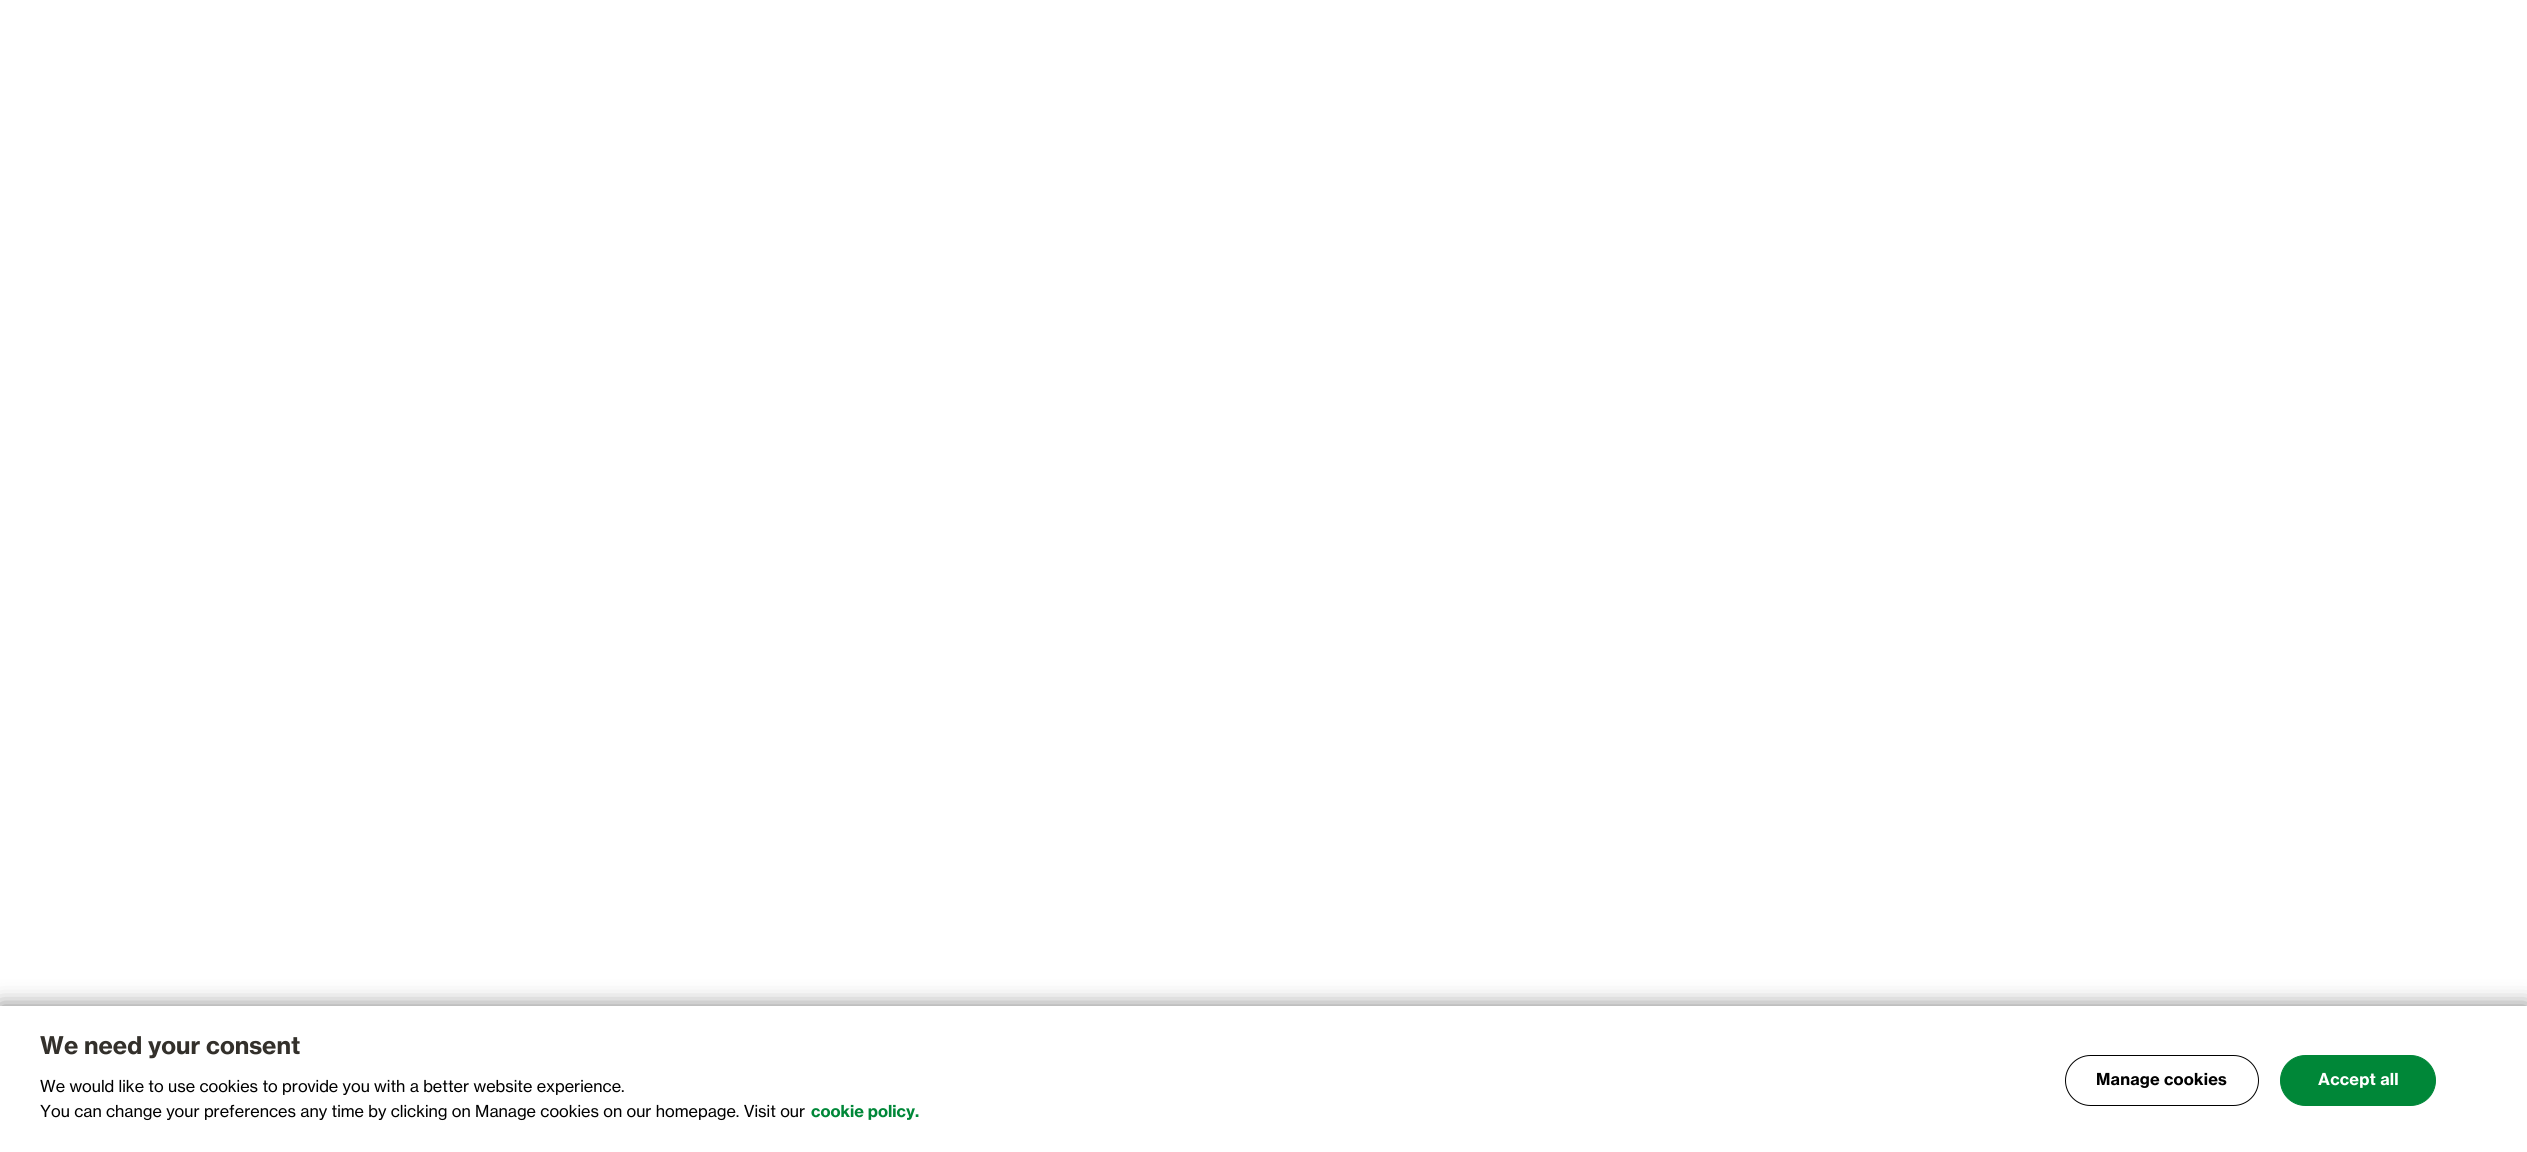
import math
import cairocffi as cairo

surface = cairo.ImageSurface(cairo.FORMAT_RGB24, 2527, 1152)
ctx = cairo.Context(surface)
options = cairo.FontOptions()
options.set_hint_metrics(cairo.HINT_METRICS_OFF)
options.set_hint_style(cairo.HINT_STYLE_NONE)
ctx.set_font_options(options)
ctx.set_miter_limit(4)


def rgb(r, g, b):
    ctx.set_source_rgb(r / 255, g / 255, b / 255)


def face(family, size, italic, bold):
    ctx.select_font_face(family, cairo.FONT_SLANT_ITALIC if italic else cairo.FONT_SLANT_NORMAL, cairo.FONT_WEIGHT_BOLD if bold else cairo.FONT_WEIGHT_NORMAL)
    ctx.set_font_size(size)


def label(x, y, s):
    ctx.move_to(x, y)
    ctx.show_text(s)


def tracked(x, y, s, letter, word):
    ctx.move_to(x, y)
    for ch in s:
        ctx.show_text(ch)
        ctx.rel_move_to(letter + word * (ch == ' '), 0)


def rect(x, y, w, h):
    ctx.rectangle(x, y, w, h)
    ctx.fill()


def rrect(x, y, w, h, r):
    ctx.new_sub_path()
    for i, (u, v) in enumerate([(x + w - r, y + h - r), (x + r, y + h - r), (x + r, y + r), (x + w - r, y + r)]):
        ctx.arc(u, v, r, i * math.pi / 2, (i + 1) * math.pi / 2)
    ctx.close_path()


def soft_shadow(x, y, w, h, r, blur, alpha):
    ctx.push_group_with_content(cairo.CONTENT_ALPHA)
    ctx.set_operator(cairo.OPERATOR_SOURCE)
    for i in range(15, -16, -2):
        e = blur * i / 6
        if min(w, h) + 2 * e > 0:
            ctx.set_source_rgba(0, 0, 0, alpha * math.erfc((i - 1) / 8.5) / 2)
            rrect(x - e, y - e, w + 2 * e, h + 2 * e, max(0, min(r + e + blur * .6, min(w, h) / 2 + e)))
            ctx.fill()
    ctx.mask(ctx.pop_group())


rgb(255, 255, 255)
ctx.paint()
rgb(0, 0, 0)
soft_shadow(0, 1006, 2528, 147, 0, 11, 0.5)
rgb(255, 255, 255)
rect(0, 1006, 2527, 146)
face('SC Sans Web', 24, 0, 1)
rgb(51, 48, 43)
label(40, 1054, 'We need your consent')
face('SC Sans Web', 16.25, 0, 0)
rgb(0, 0, 0)
label(40, 1092, 'We would like to use cookies to provide you with a better website experience.')
label(40, 1117, 'You can change your preferences any time by clicking on Manage cookies on our homepage. Visit our')
face('SC Sans Web', 16.25, 0, 1)
rgb(0, 135, 56)
label(811, 1117, 'cookie policy.')
rrect(2065.5, 1055.5, 193, 50, 25)
rgb(0, 0, 0)
ctx.set_line_width(1)
ctx.stroke()
tracked(2096, 1085, 'Manage cookies', 0.2, 0)
rgb(0, 135, 56)
rrect(2280.5, 1055.5, 155, 50, 25)
ctx.fill_preserve()
ctx.stroke()
rgb(255, 255, 255)
tracked(2318, 1085, 'Accept all', 0.2, 0)
surface.write_to_png('render.png')
